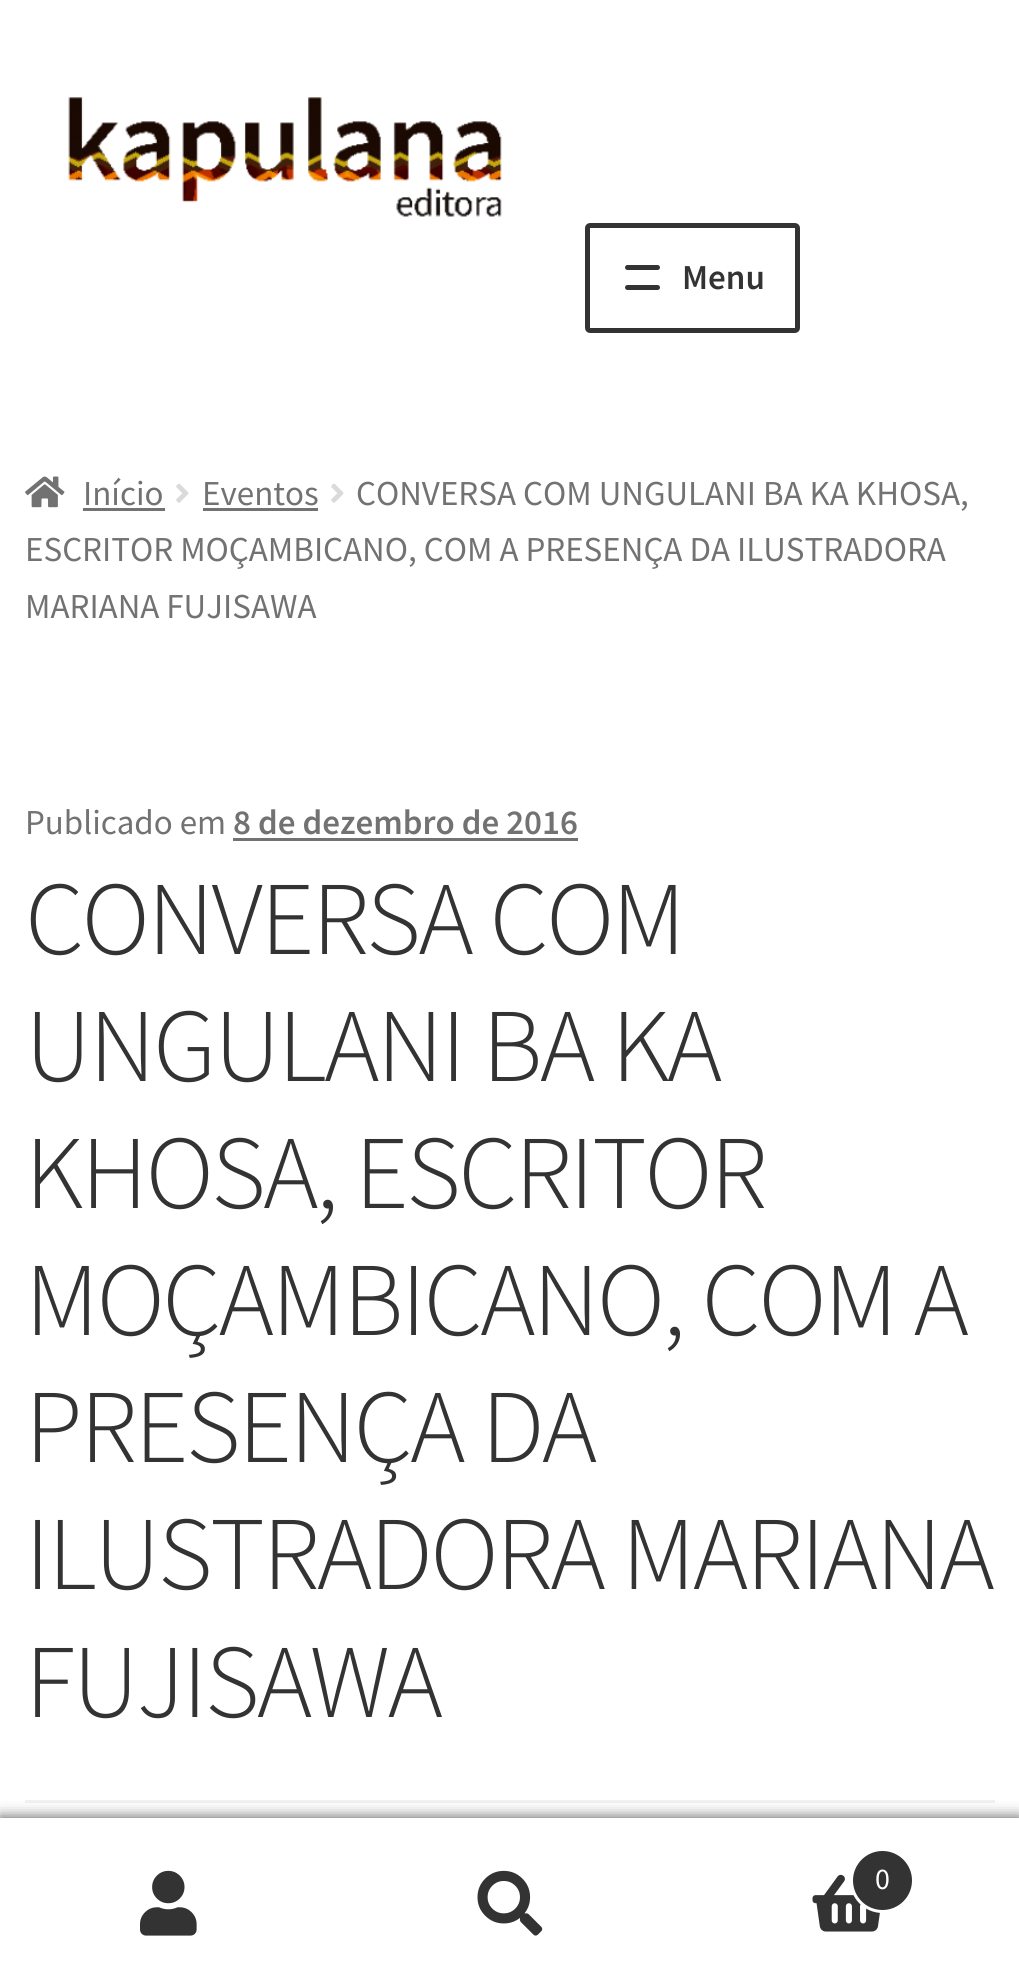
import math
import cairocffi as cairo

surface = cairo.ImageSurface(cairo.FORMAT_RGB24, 1019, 1988)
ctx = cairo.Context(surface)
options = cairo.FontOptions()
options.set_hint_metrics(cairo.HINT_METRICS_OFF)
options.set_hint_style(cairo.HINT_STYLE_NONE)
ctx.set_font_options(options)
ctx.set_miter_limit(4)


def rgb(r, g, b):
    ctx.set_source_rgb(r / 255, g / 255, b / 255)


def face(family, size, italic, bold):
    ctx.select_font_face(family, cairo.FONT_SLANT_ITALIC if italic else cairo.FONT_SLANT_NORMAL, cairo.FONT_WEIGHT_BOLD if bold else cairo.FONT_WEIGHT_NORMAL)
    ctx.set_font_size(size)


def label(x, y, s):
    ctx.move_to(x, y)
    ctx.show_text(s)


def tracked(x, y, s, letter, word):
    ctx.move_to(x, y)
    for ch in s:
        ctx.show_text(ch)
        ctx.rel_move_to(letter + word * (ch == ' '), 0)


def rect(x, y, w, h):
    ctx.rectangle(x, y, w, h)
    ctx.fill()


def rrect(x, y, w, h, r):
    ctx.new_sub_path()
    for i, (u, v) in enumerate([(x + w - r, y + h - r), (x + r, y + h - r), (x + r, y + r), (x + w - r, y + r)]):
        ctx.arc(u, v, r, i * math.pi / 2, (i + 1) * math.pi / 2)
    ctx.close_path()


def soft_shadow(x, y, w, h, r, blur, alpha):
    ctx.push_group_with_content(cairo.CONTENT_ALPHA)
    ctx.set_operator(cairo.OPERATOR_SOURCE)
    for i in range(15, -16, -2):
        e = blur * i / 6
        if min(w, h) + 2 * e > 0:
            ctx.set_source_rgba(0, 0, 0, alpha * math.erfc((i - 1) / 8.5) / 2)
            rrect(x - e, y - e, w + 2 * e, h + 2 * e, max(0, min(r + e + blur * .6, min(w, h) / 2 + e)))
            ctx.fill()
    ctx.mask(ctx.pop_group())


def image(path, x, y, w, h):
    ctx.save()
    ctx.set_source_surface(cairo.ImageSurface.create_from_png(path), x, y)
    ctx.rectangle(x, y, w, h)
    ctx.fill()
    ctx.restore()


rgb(255, 255, 255)
ctx.paint()
image('image0.png', 68, 97, 434, 120)
rrect(587.5, 225.5, 210, 105, 2.5)
rgb(51, 51, 51)
ctx.set_line_width(5)
ctx.stroke()
rrect(625, 265, 35, 5, 2.5)
ctx.fill()
face('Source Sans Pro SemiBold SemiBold', 35, 0, 0)
label(682, 289, 'Menu')
rrect(625, 285, 35, 5, 2.5)
ctx.fill()
image('image1.png', 25, 476, 40, 32)
face('Source Sans Pro', 35, 0, 0)
rgb(114, 114, 114)
label(83, 505, 'Início')
rect(83, 508, 82, 3)
image('image2.png', 176, 483, 13, 20)
label(202, 505, 'Eventos')
rect(203, 508, 115, 3)
image('image2.png', 331, 483, 13, 20)
label(356, 505, 'CONVERSA COM UNGULANI BA KA KHOSA,')
label(25, 561, 'ESCRITOR MOÇAMBICANO, COM A PRESENÇA DA ILUSTRADORA')
label(25, 618, 'MARIANA FUJISAWA')
rgb(242, 242, 242)
rect(25, 1800, 970, 3)
rgb(114, 114, 114)
label(25, 834, 'Publicado em')
face('Source Sans Pro SemiBold SemiBold', 35, 0, 0)
label(233, 834, '8 de dezembro de 2016')
rect(233, 838, 345, 3)
face('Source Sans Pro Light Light', 104.75, 0, 0)
rgb(51, 51, 51)
tracked(25, 954, 'CONVERSA COM', -2.5, 0)
tracked(25, 1081, 'UNGULANI BA KA', -2.5, 0)
tracked(25, 1208, 'KHOSA, ESCRITOR', -2.5, 0)
tracked(25, 1335, 'MOÇAMBICANO, COM A', -2.5, 0)
tracked(25, 1462, 'PRESENÇA DA', -2.5, 0)
tracked(25, 1589, 'ILUSTRADORA MARIANA', -2.5, 0)
tracked(25, 1717, 'FUJISAWA', -2.5, 0)
rgb(0, 0, 0)
soft_shadow(0, 1818, 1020, 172, 0, 7.5, 0.7)
rgb(255, 255, 255)
rect(0, 1818, 1019, 2)
rect(0, 1820, 1019, 168)
image('image3.png', 140, 1870, 57, 66)
image('image4.png', 477, 1870, 66, 66)
image('image5.png', 812, 1874, 68, 58)
rgb(51, 51, 51)
ctx.arc(882.5, 1880.5, 31, 0, 2 * math.pi)
ctx.fill_preserve()
rgb(255, 255, 255)
ctx.set_line_width(3)
ctx.stroke()
face('Source Sans Pro', 30, 0, 0)
label(875, 1889, '0')
surface.write_to_png('render.png')
